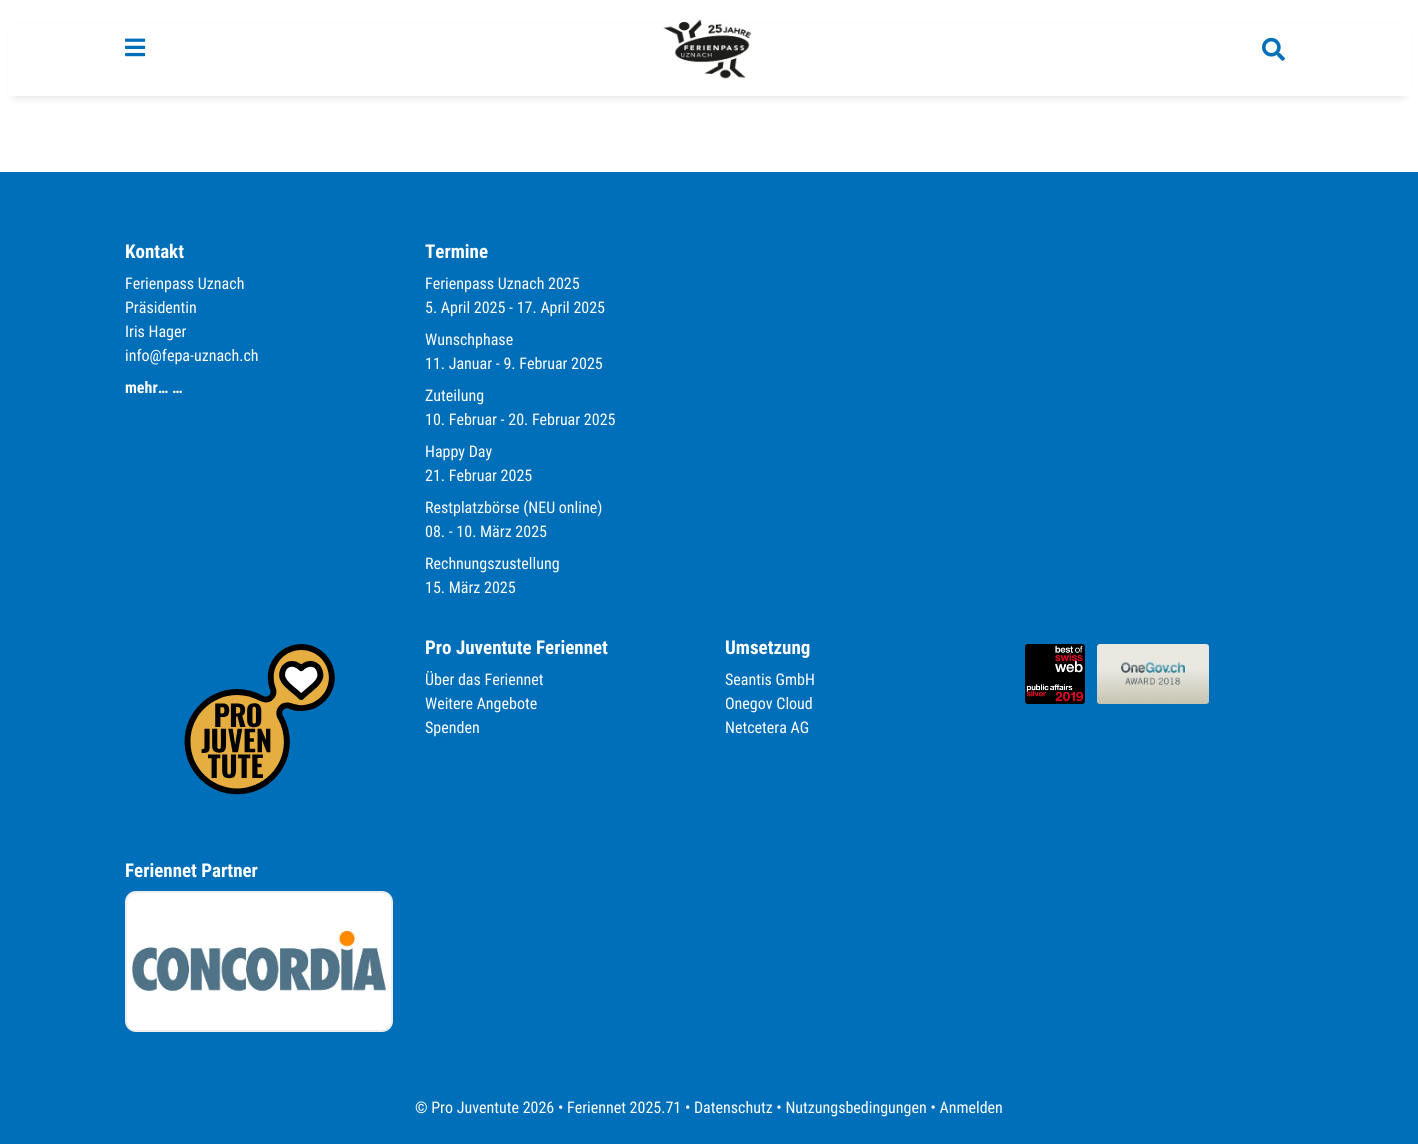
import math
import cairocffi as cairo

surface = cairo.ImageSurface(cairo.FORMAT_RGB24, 1418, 1144)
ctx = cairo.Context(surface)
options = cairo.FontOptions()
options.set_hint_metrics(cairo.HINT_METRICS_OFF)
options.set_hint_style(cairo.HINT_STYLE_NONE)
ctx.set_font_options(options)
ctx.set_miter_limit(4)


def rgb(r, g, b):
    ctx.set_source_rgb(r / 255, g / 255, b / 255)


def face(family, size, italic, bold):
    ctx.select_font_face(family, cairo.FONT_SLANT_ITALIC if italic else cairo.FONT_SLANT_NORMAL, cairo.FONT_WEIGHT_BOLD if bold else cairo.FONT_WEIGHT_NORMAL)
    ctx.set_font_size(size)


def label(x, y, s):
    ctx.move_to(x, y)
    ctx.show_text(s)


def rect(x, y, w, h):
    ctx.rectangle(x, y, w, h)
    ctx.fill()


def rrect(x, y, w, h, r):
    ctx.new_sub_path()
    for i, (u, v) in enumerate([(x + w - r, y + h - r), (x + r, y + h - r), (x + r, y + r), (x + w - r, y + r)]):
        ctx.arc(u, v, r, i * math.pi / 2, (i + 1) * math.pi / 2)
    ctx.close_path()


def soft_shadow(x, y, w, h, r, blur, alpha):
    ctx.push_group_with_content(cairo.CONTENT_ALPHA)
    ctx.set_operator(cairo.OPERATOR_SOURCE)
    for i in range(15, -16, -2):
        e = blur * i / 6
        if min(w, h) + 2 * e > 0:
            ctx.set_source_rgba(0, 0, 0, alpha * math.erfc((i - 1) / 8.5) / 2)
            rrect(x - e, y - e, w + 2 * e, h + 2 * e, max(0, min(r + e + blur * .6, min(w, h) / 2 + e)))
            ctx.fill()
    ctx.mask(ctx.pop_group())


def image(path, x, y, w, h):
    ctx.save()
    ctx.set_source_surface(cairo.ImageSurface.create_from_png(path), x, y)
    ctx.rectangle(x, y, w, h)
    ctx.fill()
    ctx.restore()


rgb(255, 255, 255)
ctx.paint()
rgb(0, 0, 0)
soft_shadow(15, 30, 1388, 66, 0, 5, 0.15)
rgb(255, 255, 255)
rect(8, 23, 1402, 73)
image('image0.png', 125, 38, 21, 19)
image('image1.png', 663, 19, 89, 60)
image('image2.png', 1262, 37, 23, 24)
rgb(0, 111, 186)
rect(0, 172, 1418, 972)
face('Roboto Condensed', 19, 0, 1)
rgb(255, 255, 255)
label(125, 258, 'Kontakt')
face('Roboto Condensed', 16, 0, 0)
label(125, 289, 'Ferienpass Uznach')
label(125, 313, 'Präsidentin')
label(125, 337, 'Iris Hager')
label(125, 361, 'info@fepa-uznach.ch')
face('Roboto Condensed', 16, 0, 1)
label(125, 393, 'mehr… …')
face('Roboto Condensed', 19, 0, 1)
label(425, 258, 'Termine')
face('Roboto Condensed', 16, 0, 0)
label(425, 289, 'Ferienpass Uznach 2025')
label(425, 313, '5. April 2025 - 17. April 2025')
label(425, 345, 'Wunschphase')
label(425, 369, '11. Januar - 9. Februar 2025')
label(425, 401, 'Zuteilung')
label(425, 425, '10. Februar - 20. Februar 2025')
label(425, 457, 'Happy Day')
label(425, 481, '21. Februar 2025')
label(425, 513, 'Restplatzbörse (NEU online)')
label(425, 537, '08. - 10. März 2025')
label(425, 569, 'Rechnungszustellung')
label(425, 593, '15. März 2025')
image('image3.png', 184, 644, 151, 151)
face('Roboto Condensed', 19, 0, 1)
label(425, 654, 'Pro Juventute Feriennet')
face('Roboto Condensed', 16, 0, 0)
label(425, 685, 'Über das Feriennet')
label(425, 709, 'Weitere Angebote')
label(425, 733, 'Spenden')
face('Roboto Condensed', 19, 0, 1)
label(725, 654, 'Umsetzung')
face('Roboto Condensed', 16, 0, 0)
label(725, 685, 'Seantis GmbH')
label(725, 709, 'Onegov Cloud')
label(725, 733, 'Netcetera AG')
image('image4.png', 1025, 644, 60, 60)
image('image5.png', 1097, 644, 112, 60)
face('Roboto Condensed', 19, 0, 1)
label(125, 877, 'Feriennet Partner')
rrect(126, 892, 266, 139, 10)
ctx.fill_preserve()
rgb(238, 238, 238)
ctx.stroke()
image('image6.png', 132, 930, 254, 62)
face('Roboto Condensed', 16, 0, 0)
rgb(255, 255, 255)
label(415, 1113, '© Pro Juventute 2026 • Feriennet 2025.71 • Datenschutz • Nutzungsbedingungen • Anmelden')
surface.write_to_png('render.png')
